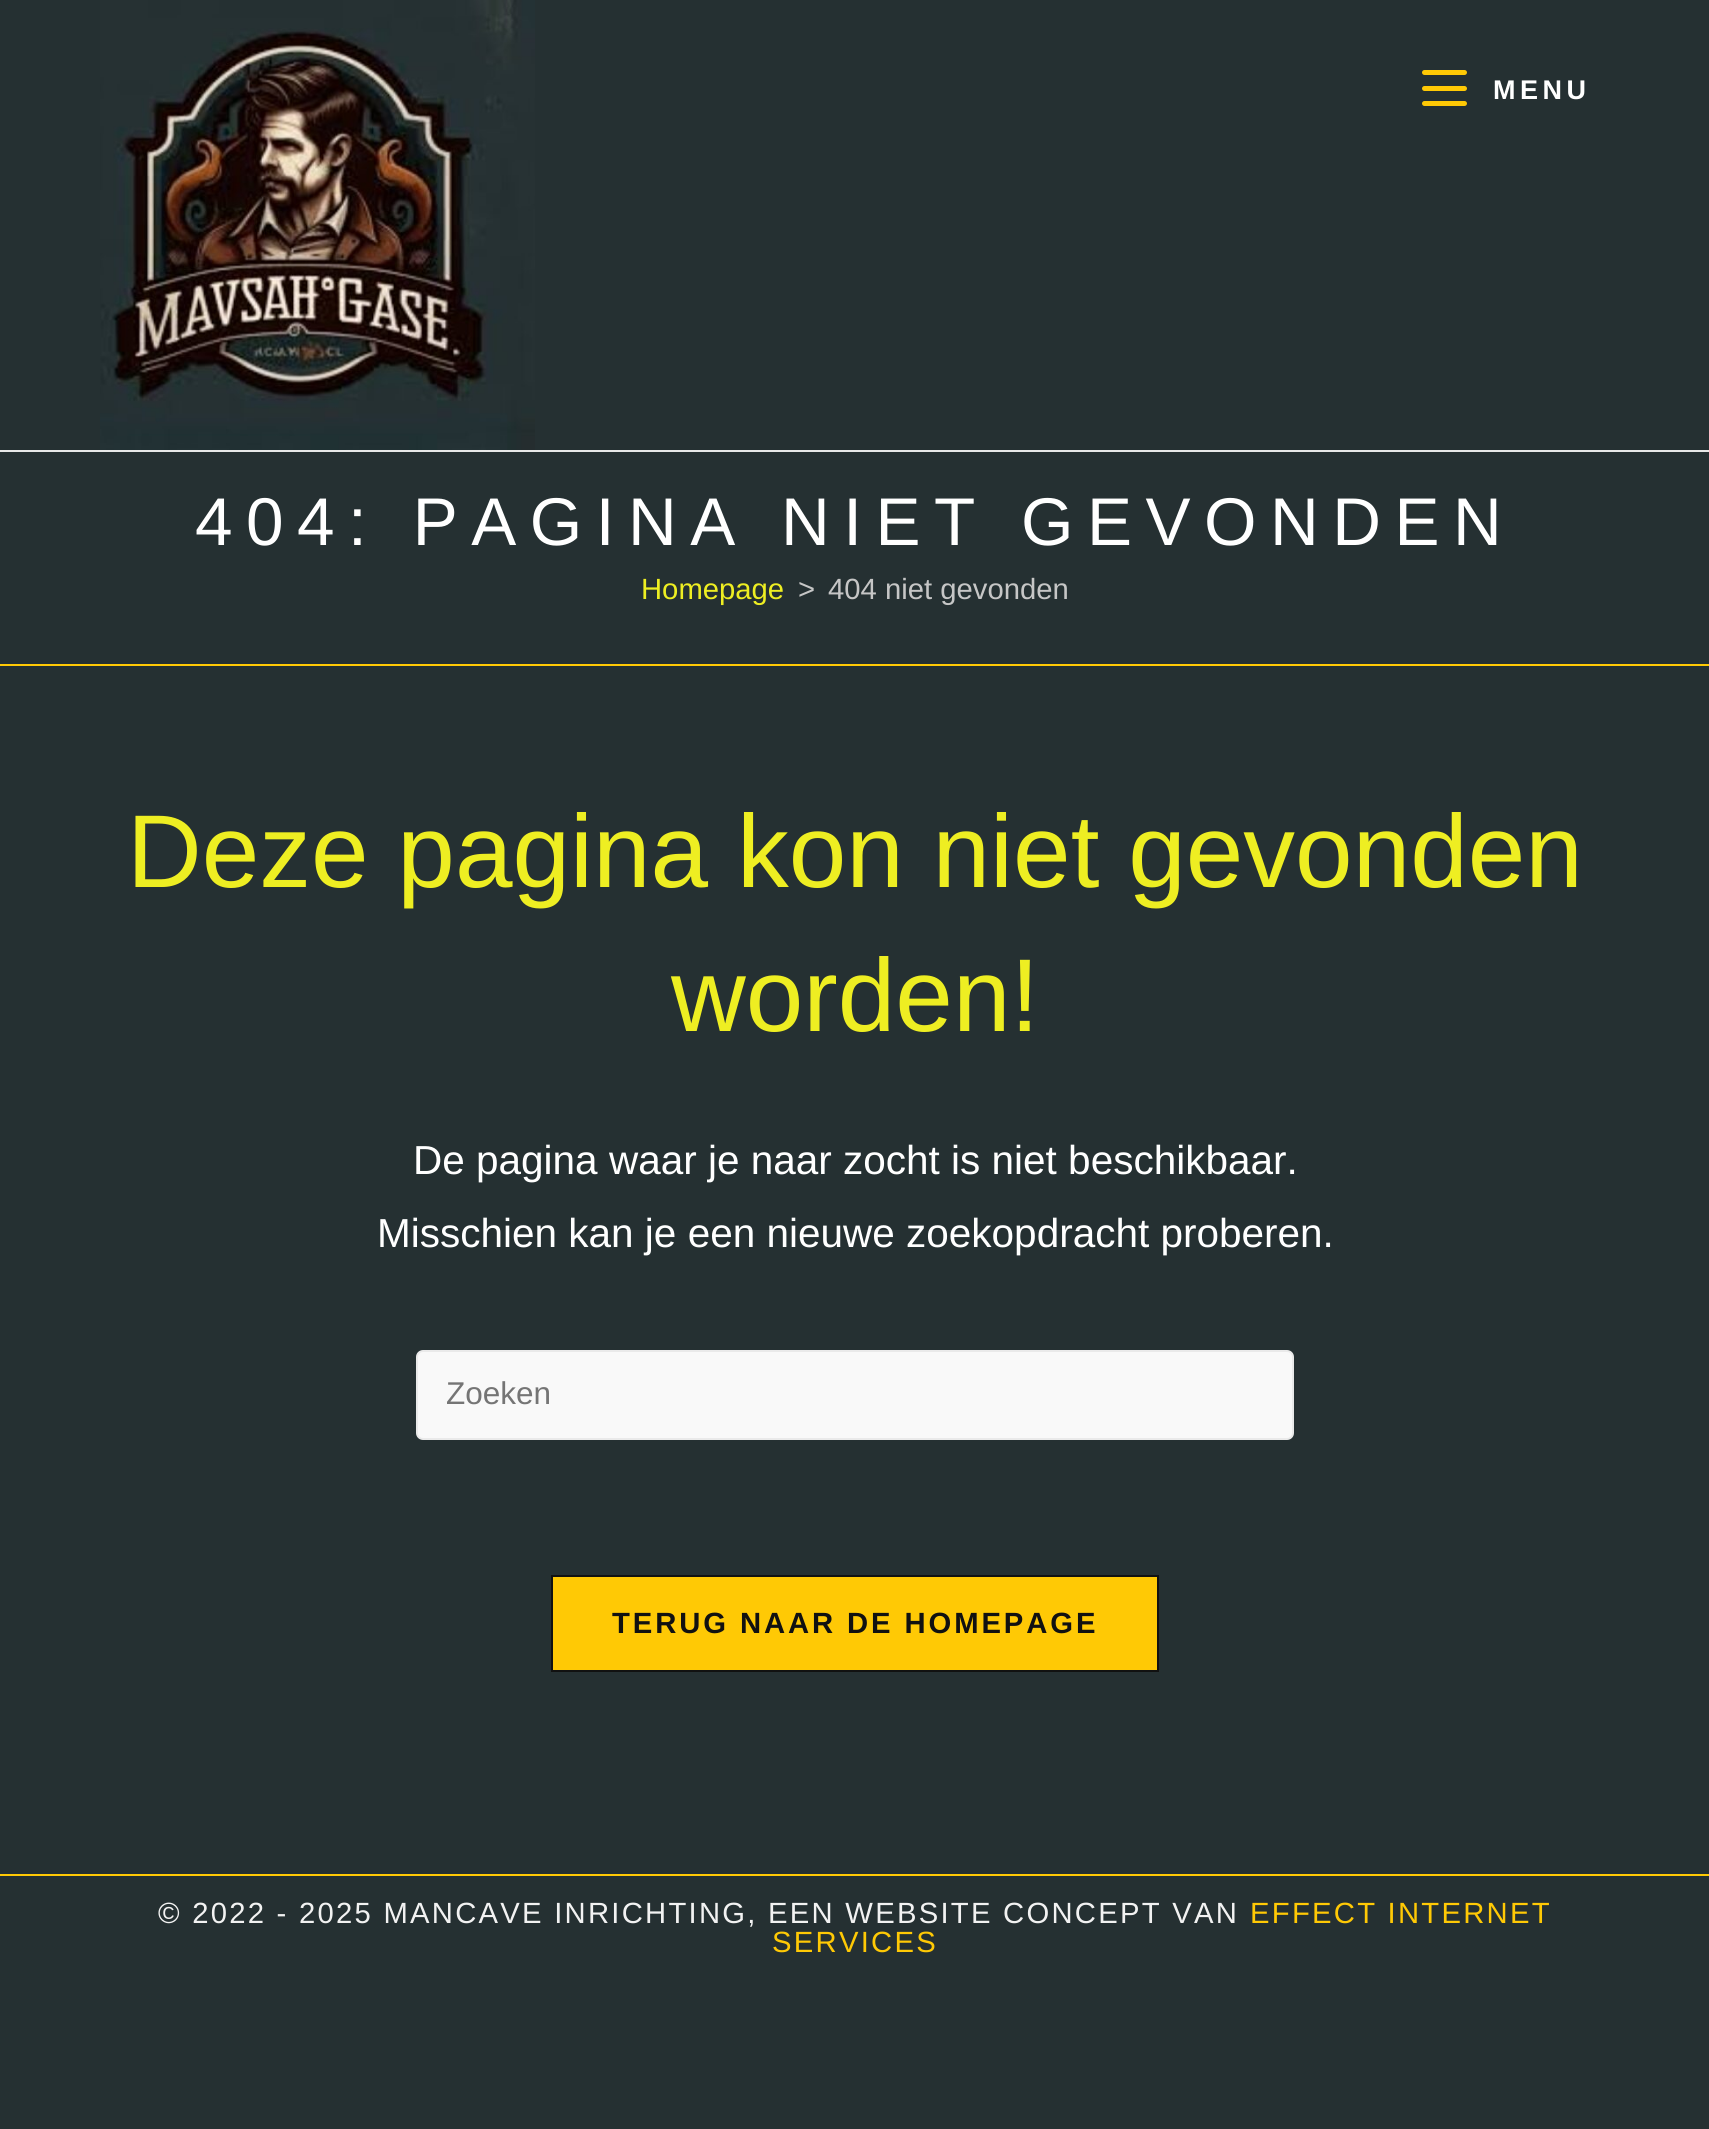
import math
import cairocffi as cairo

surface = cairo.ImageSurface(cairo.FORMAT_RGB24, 1709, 2129)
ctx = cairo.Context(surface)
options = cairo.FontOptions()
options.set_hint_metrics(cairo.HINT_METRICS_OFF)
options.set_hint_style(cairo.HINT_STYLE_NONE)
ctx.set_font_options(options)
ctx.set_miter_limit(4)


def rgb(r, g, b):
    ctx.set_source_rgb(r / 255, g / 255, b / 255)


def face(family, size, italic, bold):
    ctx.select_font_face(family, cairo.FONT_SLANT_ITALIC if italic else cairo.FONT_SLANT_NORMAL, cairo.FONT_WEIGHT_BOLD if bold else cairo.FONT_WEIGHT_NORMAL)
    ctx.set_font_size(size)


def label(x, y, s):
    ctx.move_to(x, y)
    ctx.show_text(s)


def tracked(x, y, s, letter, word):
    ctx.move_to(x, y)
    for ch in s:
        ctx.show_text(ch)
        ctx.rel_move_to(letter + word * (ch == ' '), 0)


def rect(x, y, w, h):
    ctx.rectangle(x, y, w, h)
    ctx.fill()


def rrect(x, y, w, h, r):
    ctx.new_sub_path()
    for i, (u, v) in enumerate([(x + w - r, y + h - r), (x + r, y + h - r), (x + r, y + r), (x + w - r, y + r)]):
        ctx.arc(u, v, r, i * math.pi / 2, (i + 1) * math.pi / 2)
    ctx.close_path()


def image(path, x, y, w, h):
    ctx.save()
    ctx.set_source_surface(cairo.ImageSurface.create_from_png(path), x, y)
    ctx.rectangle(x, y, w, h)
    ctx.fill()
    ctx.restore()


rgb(37, 48, 50)
ctx.paint()
rgb(232, 232, 232)
rect(0, 450, 1709, 2)
image('image0.png', 100, 0, 435, 450)
rgb(255, 201, 5)
rrect(1422, 70, 45, 5, 2.5)
ctx.fill()
rrect(1422, 86, 45, 5, 2.5)
ctx.fill()
rrect(1422, 101, 45, 5, 2.5)
ctx.fill()
face('Liberation Sans', 27, 0, 1)
rgb(255, 255, 255)
tracked(1493, 99, 'MENU', 4.5, 0)
rgb(255, 201, 5)
rect(0, 664, 1709, 2)
face('Liberation Sans', 67.5, 0, 0)
rgb(255, 255, 255)
tracked(195, 545, '404: PAGINA NIET GEVONDEN', 13.5, 0)
face('Liberation Sans', 29.25, 0, 0)
rgb(238, 238, 34)
label(641, 599, 'Homepage')
rgb(198, 198, 198)
label(798, 599, '>')
label(828, 599, '404 niet gevonden')
face('Liberation Sans', 103.5, 0, 0)
rgb(238, 238, 34)
label(127, 887, 'Deze pagina kon niet gevonden')
label(671, 1031, 'worden!')
face('Liberation Sans', 40.5, 0, 0)
rgb(255, 255, 255)
label(413, 1174, 'De pagina waar je naar zocht is niet beschikbaar.')
label(377, 1247, 'Misschien kan je een nieuwe zoekopdracht proberen.')
rgb(249, 249, 249)
rrect(417, 1351, 876, 88, 6)
ctx.fill_preserve()
rgb(234, 234, 234)
ctx.stroke()
face('Liberation Sans', 31.5, 0, 0)
rgb(117, 117, 117)
label(446, 1404, 'Zoeken')
rgb(255, 201, 5)
ctx.rectangle(552, 1576, 606, 95)
ctx.fill_preserve()
rgb(17, 17, 17)
ctx.stroke()
face('Liberation Sans', 29.25, 0, 1)
tracked(612, 1633, 'TERUG NAAR DE HOMEPAGE', 2.9, 0)
rgb(255, 201, 5)
rect(0, 1874, 1709, 2)
face('Liberation Sans', 29.25, 0, 0)
rgb(242, 242, 242)
tracked(158, 1923, '© 2022 - 2025 MANCAVE INRICHTING, EEN WEBSITE CONCEPT VAN', 2.25, 0)
rgb(255, 201, 5)
tracked(1250, 1923, 'EFFECT INTERNET', 2.25, 0)
tracked(772, 1952, 'SERVICES', 2.25, 0)
surface.write_to_png('render.png')
